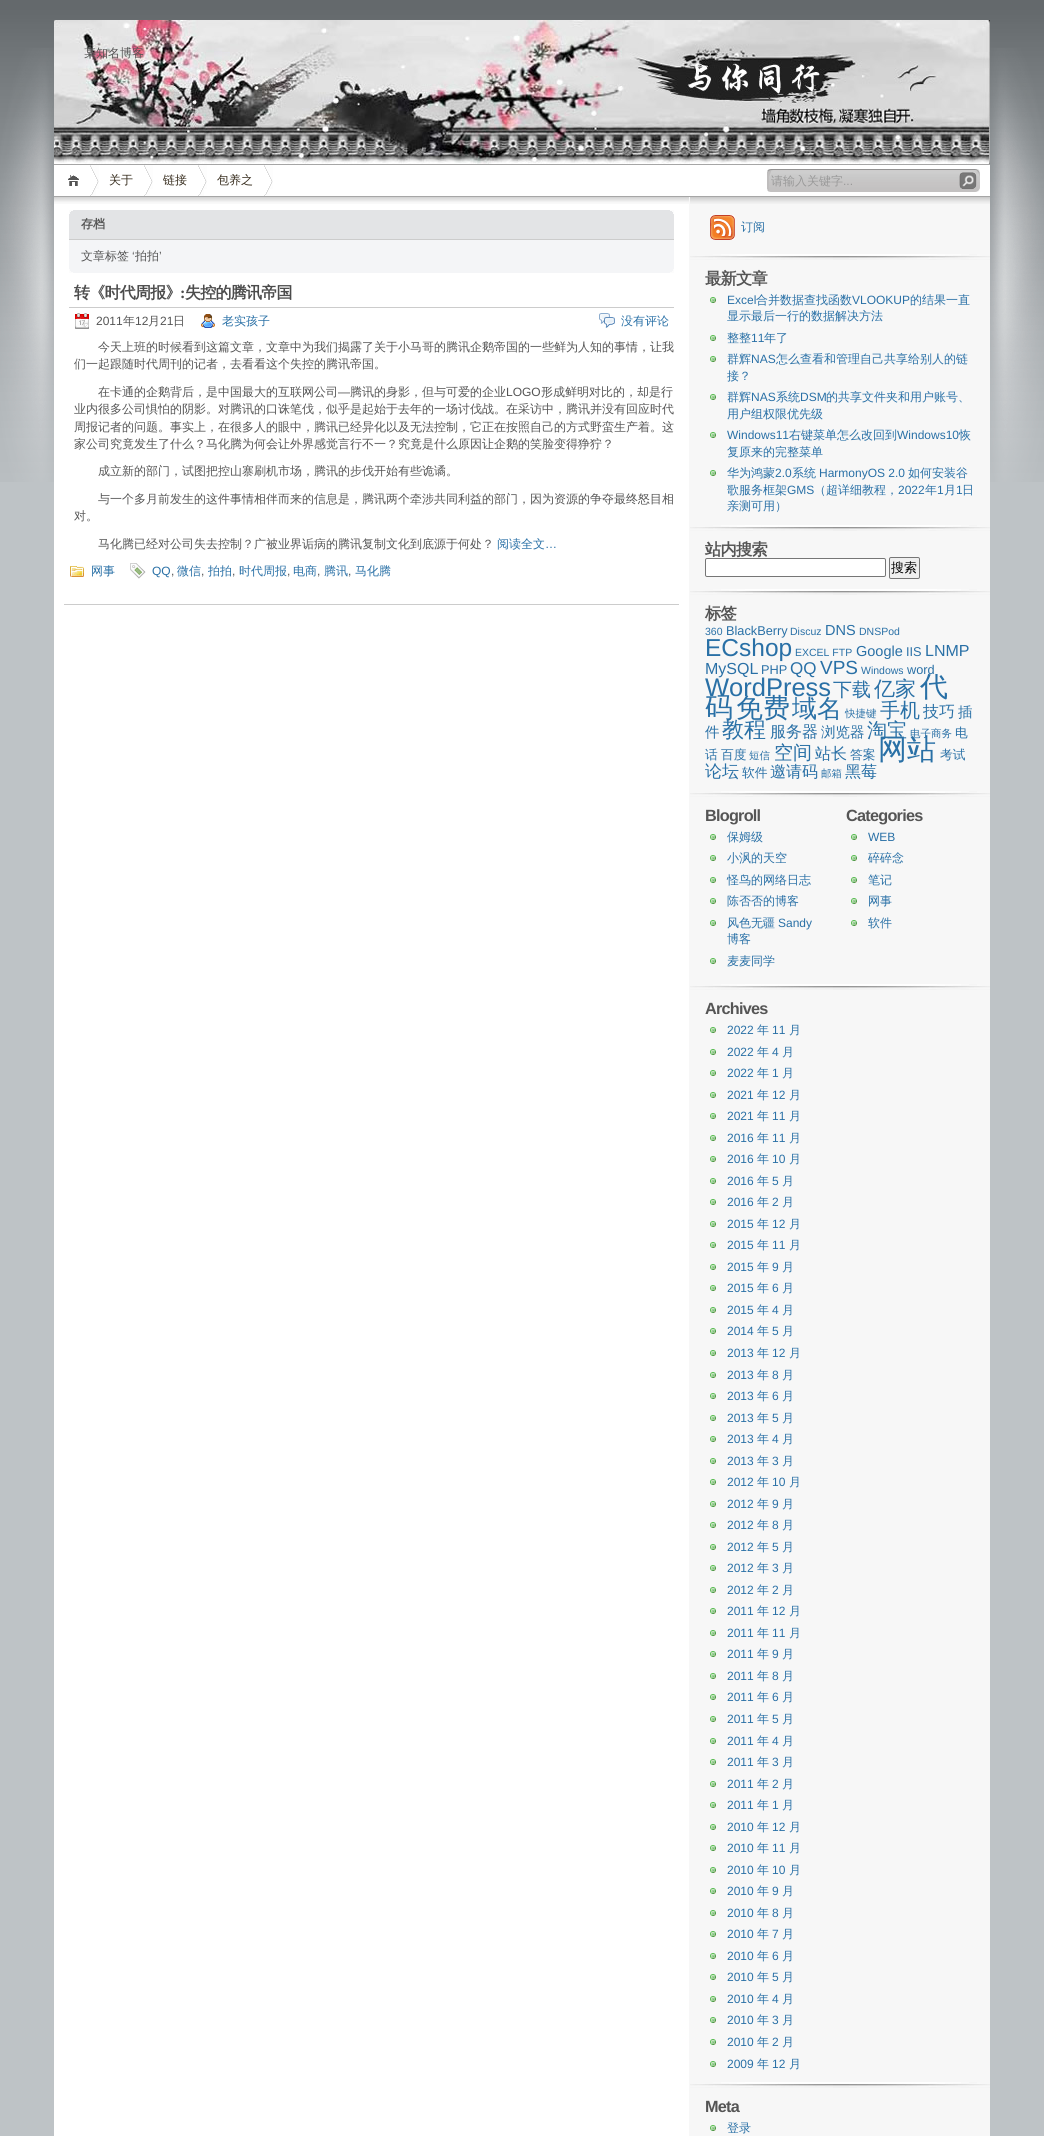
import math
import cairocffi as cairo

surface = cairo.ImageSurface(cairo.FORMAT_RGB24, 1044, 2136)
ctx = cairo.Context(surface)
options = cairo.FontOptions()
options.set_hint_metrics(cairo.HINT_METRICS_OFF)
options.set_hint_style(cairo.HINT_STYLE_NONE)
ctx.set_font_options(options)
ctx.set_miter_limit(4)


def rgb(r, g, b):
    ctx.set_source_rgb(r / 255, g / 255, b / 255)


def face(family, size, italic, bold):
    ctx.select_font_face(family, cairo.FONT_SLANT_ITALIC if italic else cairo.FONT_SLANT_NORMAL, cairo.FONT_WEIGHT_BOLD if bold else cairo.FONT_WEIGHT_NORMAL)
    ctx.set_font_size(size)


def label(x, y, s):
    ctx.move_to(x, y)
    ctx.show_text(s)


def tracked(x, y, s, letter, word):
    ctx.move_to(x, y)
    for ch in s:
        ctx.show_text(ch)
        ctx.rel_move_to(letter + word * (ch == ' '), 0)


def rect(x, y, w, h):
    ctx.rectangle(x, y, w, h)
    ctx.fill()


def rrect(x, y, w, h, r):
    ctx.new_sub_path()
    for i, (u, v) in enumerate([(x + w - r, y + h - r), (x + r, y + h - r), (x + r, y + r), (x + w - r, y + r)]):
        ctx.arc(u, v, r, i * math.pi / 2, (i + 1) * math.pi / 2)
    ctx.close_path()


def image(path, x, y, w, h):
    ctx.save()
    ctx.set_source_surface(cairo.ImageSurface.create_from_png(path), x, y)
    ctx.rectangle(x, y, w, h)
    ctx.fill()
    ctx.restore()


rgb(190, 195, 198)
ctx.paint()
image('image0.png', 0, 0, 1044, 48)
image('image1.png', 0, 48, 1044, 434)
image('image2.png', 54, 20, 936, 144)
rgb(166, 166, 166)
rect(54, 164, 936, 1)
face('WenQuanYi Zen Hei Medium', 12, 0, 0)
rgb(85, 85, 85)
label(84, 57, '某知名博客')
rgb(255, 255, 255)
rect(54, 165, 936, 31)
rgb(166, 166, 166)
rect(54, 196, 936, 1)
image('image3.png', 68, 175, 11, 11)
image('image4.png', 90, 165, 9, 31)
rgb(56, 46, 31)
label(109, 184, '关于')
image('image4.png', 144, 165, 9, 31)
label(163, 184, '链接')
image('image4.png', 198, 165, 9, 31)
label(217, 184, '包养之')
image('image4.png', 264, 165, 9, 31)
image('image5.png', 767, 169, 213, 23)
rgb(153, 153, 153)
label(771, 185, '请输入关键字')
face('Liberation Sans', 12, 0, 0)
label(843, 185, '...')
rgb(255, 255, 255)
rect(54, 204, 635, 1932)
rgb(247, 247, 247)
rect(689, 197, 301, 1939)
image('image6.png', 54, 197, 635, 7)
rgb(227, 228, 230)
rect(69, 210, 605, 29)
image('image7.png', 69, 210, 605, 4)
rgb(204, 204, 204)
rect(69, 239, 605, 1)
face('WenQuanYi Zen Hei', 12, 0, 1)
rgb(85, 85, 85)
label(81, 228, '存档')
rgb(244, 245, 247)
rect(69, 240, 605, 33)
image('image8.png', 69, 269, 605, 4)
face('WenQuanYi Zen Hei Medium', 12, 0, 0)
rgb(85, 85, 85)
label(81, 260, '文章标签')
face('Liberation Sans', 12, 0, 0)
label(132, 260, '‘')
face('WenQuanYi Zen Hei Medium', 12, 0, 0)
label(135, 260, '拍拍')
face('Liberation Sans', 12, 0, 0)
label(159, 260, '’')
rgb(204, 204, 204)
rect(69, 307, 605, 1)
face('WenQuanYi Zen Hei', 16, 0, 1)
rgb(76, 76, 76)
tracked(74, 298, '转《时代周报》', -0.75, 0)
face('Liberation Serif', 16, 0, 1)
tracked(180, 298, ':', -0.75, 0)
face('WenQuanYi Zen Hei', 16, 0, 1)
tracked(185, 298, '失控的腾讯帝国', -0.75, 0)
image('image9.png', 75, 313, 14, 16)
face('Liberation Sans', 12, 0, 0)
rgb(85, 85, 85)
label(96, 325, '2011')
face('WenQuanYi Zen Hei Medium', 12, 0, 0)
label(123, 325, '年')
face('Liberation Sans', 12, 0, 0)
label(135, 325, '12')
face('WenQuanYi Zen Hei Medium', 12, 0, 0)
label(148, 325, '月')
face('Liberation Sans', 12, 0, 0)
label(160, 325, '21')
face('WenQuanYi Zen Hei Medium', 12, 0, 0)
label(173, 325, '日')
image('image10.png', 201, 314, 14, 14)
rgb(41, 112, 166)
label(222, 325, '老实孩子')
image('image11.png', 599, 313, 16, 15)
label(621, 325, '没有评论')
rgb(85, 85, 85)
label(98, 351, '今天上班的时候看到这篇文章，文章中为我们揭露了关于小马哥的腾讯企鹅帝国的一些鲜为人知的事情，让我')
label(74, 368, '们一起跟随时代周刊的记者，去看看这个失控的腾讯帝国。')
label(98, 396, '在卡通的企鹅背后，是中国最大的互联网公司')
face('Liberation Sans', 12, 0, 0)
label(338, 396, '—')
face('WenQuanYi Zen Hei Medium', 12, 0, 0)
label(350, 396, '腾讯的身影，但与可爱的企业')
face('Liberation Sans', 12, 0, 0)
label(506, 396, 'LOGO')
face('WenQuanYi Zen Hei Medium', 12, 0, 0)
label(541, 396, '形成鲜明对比的，却是行')
label(74, 413, '业内很多公司惧怕的阴影。对腾讯的口诛笔伐，似乎是起始于去年的一场讨伐战。在采访中，腾讯并没有回应时代')
label(74, 431, '周报记者的问题。事实上，在很多人的眼中，腾讯已经异化以及无法控制，它正在按照自己的方式野蛮生产着。这')
label(74, 448, '家公司究竟发生了什么？马化腾为何会让外界感觉言行不一？究竟是什么原因让企鹅的笑脸变得狰狞？')
label(98, 475, '成立新的部门，试图把控山寨刷机市场，腾讯的步伐开始有些诡谲。')
label(98, 503, '与一个多月前发生的这件事情相伴而来的信息是，腾讯两个牵涉共同利益的部门，因为资源的争夺最终怒目相')
label(74, 520, '对。')
label(98, 548, '马化腾已经对公司失去控制？广被业界诟病的腾讯复制文化到底源于何处？')
rgb(41, 112, 166)
label(497, 548, '阅读全文')
face('Liberation Sans', 12, 0, 0)
label(545, 548, '…')
image('image12.png', 70, 566, 14, 11)
face('WenQuanYi Zen Hei Medium', 12, 0, 0)
label(91, 575, '网事')
image('image13.png', 130, 563, 16, 16)
face('Liberation Sans', 12, 0, 0)
label(152, 575, 'QQ')
rgb(85, 85, 85)
label(171, 575, ',')
face('WenQuanYi Zen Hei Medium', 12, 0, 0)
rgb(41, 112, 166)
label(177, 575, '微信')
face('Liberation Sans', 12, 0, 0)
rgb(85, 85, 85)
label(201, 575, ',')
face('WenQuanYi Zen Hei Medium', 12, 0, 0)
rgb(41, 112, 166)
label(208, 575, '拍拍')
face('Liberation Sans', 12, 0, 0)
rgb(85, 85, 85)
label(232, 575, ',')
face('WenQuanYi Zen Hei Medium', 12, 0, 0)
rgb(41, 112, 166)
label(239, 575, '时代周报')
face('Liberation Sans', 12, 0, 0)
rgb(85, 85, 85)
label(287, 575, ',')
face('WenQuanYi Zen Hei Medium', 12, 0, 0)
rgb(41, 112, 166)
label(293, 575, '电商')
face('Liberation Sans', 12, 0, 0)
rgb(85, 85, 85)
label(317, 575, ',')
face('WenQuanYi Zen Hei Medium', 12, 0, 0)
rgb(41, 112, 166)
label(324, 575, '腾讯')
face('Liberation Sans', 12, 0, 0)
rgb(85, 85, 85)
label(348, 575, ',')
face('WenQuanYi Zen Hei Medium', 12, 0, 0)
rgb(41, 112, 166)
label(355, 575, '马化腾')
rgb(204, 204, 204)
rect(64, 604, 615, 1)
image('image14.png', 690, 197, 300, 7)
image('image15.png', 690, 254, 300, 6)
image('image16.png', 710, 215, 25, 25)
rgb(41, 112, 166)
label(741, 231, '订阅')
image('image15.png', 690, 525, 300, 6)
face('WenQuanYi Zen Hei', 16.25, 0, 1)
rgb(85, 85, 85)
tracked(705, 284, '最新文章', -0.75, 0)
image('image17.png', 710, 297, 6, 6)
face('Liberation Sans', 12, 0, 0)
rgb(41, 112, 166)
label(727, 304, 'Excel')
face('WenQuanYi Zen Hei Medium', 12, 0, 0)
label(756, 304, '合并数据查找函数')
face('Liberation Sans', 12, 0, 0)
label(852, 304, 'VLOOKUP')
face('WenQuanYi Zen Hei Medium', 12, 0, 0)
label(910, 304, '的结果一直')
label(727, 320, '显示最后一行的数据解决方法')
image('image17.png', 710, 335, 6, 6)
label(727, 342, '整整')
face('Liberation Sans', 12, 0, 0)
label(751, 342, '11')
face('WenQuanYi Zen Hei Medium', 12, 0, 0)
label(764, 342, '年了')
image('image17.png', 710, 356, 6, 6)
label(727, 363, '群辉')
face('Liberation Sans', 12, 0, 0)
label(751, 363, 'NAS')
face('WenQuanYi Zen Hei Medium', 12, 0, 0)
label(776, 363, '怎么查看和管理自己共享给别人的链')
label(727, 380, '接？')
image('image17.png', 710, 394, 6, 6)
label(727, 401, '群辉')
face('Liberation Sans', 12, 0, 0)
label(751, 401, 'NAS')
face('WenQuanYi Zen Hei Medium', 12, 0, 0)
label(776, 401, '系统')
face('Liberation Sans', 12, 0, 0)
label(800, 401, 'DSM')
face('WenQuanYi Zen Hei Medium', 12, 0, 0)
label(826, 401, '的共享文件夹和用户账号、')
label(727, 418, '用户组权限优先级')
image('image17.png', 710, 432, 6, 6)
face('Liberation Sans', 12, 0, 0)
label(727, 439, 'Windows11')
face('WenQuanYi Zen Hei Medium', 12, 0, 0)
label(789, 439, '右键菜单怎么改回到')
face('Liberation Sans', 12, 0, 0)
label(897, 439, 'Windows10')
face('WenQuanYi Zen Hei Medium', 12, 0, 0)
label(959, 439, '恢')
label(727, 456, '复原来的完整菜单')
image('image17.png', 710, 470, 6, 6)
label(727, 477, '华为鸿蒙')
face('Liberation Sans', 12, 0, 0)
label(775, 477, '2.0')
face('WenQuanYi Zen Hei Medium', 12, 0, 0)
label(792, 477, '系统')
face('Liberation Sans', 12, 0, 0)
label(819, 477, 'HarmonyOS 2.0')
face('WenQuanYi Zen Hei Medium', 12, 0, 0)
label(908, 477, '如何安装谷')
label(727, 494, '歌服务框架')
face('Liberation Sans', 12, 0, 0)
label(787, 494, 'GMS')
face('WenQuanYi Zen Hei Medium', 12, 0, 0)
label(814, 494, '（超详细教程，')
face('Liberation Sans', 12, 0, 0)
label(898, 494, '2022')
face('WenQuanYi Zen Hei Medium', 12, 0, 0)
label(925, 494, '年')
face('Liberation Sans', 12, 0, 0)
label(937, 494, '1')
face('WenQuanYi Zen Hei Medium', 12, 0, 0)
label(944, 494, '月')
face('Liberation Sans', 12, 0, 0)
label(956, 494, '1')
face('WenQuanYi Zen Hei Medium', 12, 0, 0)
label(962, 494, '日')
label(727, 510, '亲测可用）')
image('image15.png', 690, 589, 300, 6)
face('WenQuanYi Zen Hei', 16.25, 0, 1)
rgb(85, 85, 85)
tracked(705, 555, '站内搜索', -0.75, 0)
rgb(255, 255, 255)
rrect(705.5, 558.5, 180, 18, 1.5)
ctx.fill_preserve()
rgb(118, 118, 118)
ctx.set_line_width(1)
ctx.stroke()
rgb(239, 239, 239)
rrect(889.5, 557.5, 30, 21, 1.5)
ctx.fill_preserve()
rgb(118, 118, 118)
ctx.stroke()
face('WenQuanYi Zen Hei Medium', 13, 0, 0)
rgb(0, 0, 0)
label(891, 572, '搜索')
image('image15.png', 690, 791, 300, 6)
face('WenQuanYi Zen Hei', 16.25, 0, 1)
rgb(85, 85, 85)
tracked(705, 619, '标签', -0.75, 0)
face('Liberation Sans', 10.5, 0, 0)
rgb(41, 112, 166)
label(705, 635, '360')
face('Liberation Sans', 12.75, 0, 0)
label(726, 635, 'BlackBerry')
face('Liberation Sans', 10.5, 0, 0)
label(790, 635, 'Discuz')
face('Liberation Sans', 14.5, 0, 0)
label(825, 635, 'DNS')
face('Liberation Sans', 10.5, 0, 0)
label(859, 635, 'DNSPod')
face('Liberation Sans', 24.5, 0, 0)
label(705, 656, 'ECshop')
face('Liberation Sans', 10.5, 0, 0)
label(795, 656, 'EXCEL FTP')
face('Liberation Sans', 14.5, 0, 0)
label(856, 656, 'Google')
face('Liberation Sans', 12.75, 0, 0)
label(906, 656, 'IIS')
face('Liberation Sans', 16, 0, 0)
label(925, 656, 'LNMP')
label(705, 674, 'MySQL')
face('Liberation Sans', 12.75, 0, 0)
label(761, 674, 'PHP')
face('Liberation Sans', 17, 0, 0)
label(790, 674, 'QQ')
face('Liberation Sans', 19, 0, 0)
label(820, 674, 'VPS')
face('Liberation Sans', 10.5, 0, 0)
label(861, 674, 'Windows')
face('Liberation Sans', 12.75, 0, 0)
label(907, 674, 'word')
face('Liberation Sans', 25.5, 0, 0)
label(705, 696, 'WordPress')
face('WenQuanYi Zen Hei Medium', 19, 0, 0)
label(833, 696, '下载')
face('WenQuanYi Zen Hei Medium', 21, 0, 0)
label(874, 696, '亿家')
face('WenQuanYi Zen Hei Medium', 28, 0, 0)
label(920, 696, '代')
label(705, 717, '码')
face('WenQuanYi Zen Hei Medium', 27, 0, 0)
label(736, 717, '免费')
face('WenQuanYi Zen Hei Medium', 25, 0, 0)
label(792, 717, '域名')
face('WenQuanYi Zen Hei Medium', 10.5, 0, 0)
label(845, 717, '快捷键')
face('WenQuanYi Zen Hei Medium', 20, 0, 0)
label(880, 717, '手机')
face('WenQuanYi Zen Hei Medium', 16, 0, 0)
label(923, 717, '技巧')
face('WenQuanYi Zen Hei Medium', 14.5, 0, 0)
label(958, 717, '插')
label(705, 737, '件')
face('WenQuanYi Zen Hei Medium', 22, 0, 0)
label(722, 737, '教程')
face('WenQuanYi Zen Hei Medium', 16, 0, 0)
label(770, 737, '服务器')
face('WenQuanYi Zen Hei Medium', 14.5, 0, 0)
label(821, 737, '浏览器')
face('WenQuanYi Zen Hei Medium', 20, 0, 0)
label(867, 737, '淘宝')
face('WenQuanYi Zen Hei Medium', 10.5, 0, 0)
label(910, 737, '电子商务')
face('WenQuanYi Zen Hei Medium', 12.75, 0, 0)
label(955, 737, '电')
label(705, 759, '话')
label(721, 759, '百度')
face('WenQuanYi Zen Hei Medium', 10.5, 0, 0)
label(749, 759, '短信')
face('WenQuanYi Zen Hei Medium', 19, 0, 0)
label(774, 759, '空间')
face('WenQuanYi Zen Hei Medium', 16, 0, 0)
label(815, 759, '站长')
face('WenQuanYi Zen Hei Medium', 12.75, 0, 0)
label(850, 759, '答案')
face('WenQuanYi Zen Hei Medium', 29, 0, 0)
label(878, 759, '网站')
face('WenQuanYi Zen Hei Medium', 12.75, 0, 0)
label(940, 759, '考试')
face('WenQuanYi Zen Hei Medium', 17, 0, 0)
label(705, 777, '论坛')
face('WenQuanYi Zen Hei Medium', 12.75, 0, 0)
label(742, 777, '软件')
face('WenQuanYi Zen Hei Medium', 16, 0, 0)
label(770, 777, '邀请码')
face('WenQuanYi Zen Hei Medium', 10.5, 0, 0)
label(821, 777, '邮箱')
face('WenQuanYi Zen Hei Medium', 16, 0, 0)
label(845, 777, '黑莓')
image('image15.png', 690, 984, 300, 6)
face('Liberation Sans', 16.25, 0, 1)
rgb(85, 85, 85)
tracked(705, 821, 'Blogroll', -0.75, 0)
image('image17.png', 710, 834, 6, 6)
face('WenQuanYi Zen Hei Medium', 12, 0, 0)
rgb(41, 112, 166)
label(727, 841, '保姆级')
image('image17.png', 710, 855, 6, 6)
label(727, 862, '小沨的天空')
image('image17.png', 710, 877, 6, 6)
label(727, 884, '怪鸟的网络日志')
image('image17.png', 710, 898, 6, 6)
label(727, 905, '陈否否的博客')
image('image17.png', 710, 920, 6, 6)
label(727, 927, '风色无疆')
face('Liberation Sans', 12, 0, 0)
label(778, 927, 'Sandy')
face('WenQuanYi Zen Hei Medium', 12, 0, 0)
label(727, 943, '博客')
image('image17.png', 710, 958, 6, 6)
label(727, 965, '麦麦同学')
face('Liberation Sans', 16.25, 0, 1)
rgb(85, 85, 85)
tracked(846, 821, 'Categories', -0.75, 0)
image('image17.png', 851, 834, 6, 6)
face('Liberation Sans', 12, 0, 0)
rgb(41, 112, 166)
label(868, 841, 'WEB')
image('image17.png', 851, 855, 6, 6)
face('WenQuanYi Zen Hei Medium', 12, 0, 0)
label(868, 862, '碎碎念')
image('image17.png', 851, 877, 6, 6)
label(868, 884, '笔记')
image('image17.png', 851, 898, 6, 6)
label(868, 905, '网事')
image('image17.png', 851, 920, 6, 6)
label(868, 927, '软件')
image('image15.png', 690, 2082, 300, 6)
face('Liberation Sans', 16.25, 0, 1)
rgb(85, 85, 85)
tracked(705, 1014, 'Archives', -0.75, 0)
image('image17.png', 710, 1027, 6, 6)
face('Liberation Sans', 12, 0, 0)
rgb(41, 112, 166)
label(727, 1034, '2022')
face('WenQuanYi Zen Hei Medium', 12, 0, 0)
label(757, 1034, '年')
face('Liberation Sans', 12, 0, 0)
label(772, 1034, '11')
face('WenQuanYi Zen Hei Medium', 12, 0, 0)
label(789, 1034, '月')
image('image17.png', 710, 1049, 6, 6)
face('Liberation Sans', 12, 0, 0)
label(727, 1056, '2022')
face('WenQuanYi Zen Hei Medium', 12, 0, 0)
label(757, 1056, '年')
face('Liberation Sans', 12, 0, 0)
label(772, 1056, '4')
face('WenQuanYi Zen Hei Medium', 12, 0, 0)
label(782, 1056, '月')
image('image17.png', 710, 1070, 6, 6)
face('Liberation Sans', 12, 0, 0)
label(727, 1077, '2022')
face('WenQuanYi Zen Hei Medium', 12, 0, 0)
label(757, 1077, '年')
face('Liberation Sans', 12, 0, 0)
label(772, 1077, '1')
face('WenQuanYi Zen Hei Medium', 12, 0, 0)
label(782, 1077, '月')
image('image17.png', 710, 1092, 6, 6)
face('Liberation Sans', 12, 0, 0)
label(727, 1099, '2021')
face('WenQuanYi Zen Hei Medium', 12, 0, 0)
label(757, 1099, '年')
face('Liberation Sans', 12, 0, 0)
label(772, 1099, '12')
face('WenQuanYi Zen Hei Medium', 12, 0, 0)
label(789, 1099, '月')
image('image17.png', 710, 1113, 6, 6)
face('Liberation Sans', 12, 0, 0)
label(727, 1120, '2021')
face('WenQuanYi Zen Hei Medium', 12, 0, 0)
label(757, 1120, '年')
face('Liberation Sans', 12, 0, 0)
label(772, 1120, '11')
face('WenQuanYi Zen Hei Medium', 12, 0, 0)
label(789, 1120, '月')
image('image17.png', 710, 1135, 6, 6)
face('Liberation Sans', 12, 0, 0)
label(727, 1142, '2016')
face('WenQuanYi Zen Hei Medium', 12, 0, 0)
label(757, 1142, '年')
face('Liberation Sans', 12, 0, 0)
label(772, 1142, '11')
face('WenQuanYi Zen Hei Medium', 12, 0, 0)
label(789, 1142, '月')
image('image17.png', 710, 1156, 6, 6)
face('Liberation Sans', 12, 0, 0)
label(727, 1163, '2016')
face('WenQuanYi Zen Hei Medium', 12, 0, 0)
label(757, 1163, '年')
face('Liberation Sans', 12, 0, 0)
label(772, 1163, '10')
face('WenQuanYi Zen Hei Medium', 12, 0, 0)
label(789, 1163, '月')
image('image17.png', 710, 1178, 6, 6)
face('Liberation Sans', 12, 0, 0)
label(727, 1185, '2016')
face('WenQuanYi Zen Hei Medium', 12, 0, 0)
label(757, 1185, '年')
face('Liberation Sans', 12, 0, 0)
label(772, 1185, '5')
face('WenQuanYi Zen Hei Medium', 12, 0, 0)
label(782, 1185, '月')
image('image17.png', 710, 1199, 6, 6)
face('Liberation Sans', 12, 0, 0)
label(727, 1206, '2016')
face('WenQuanYi Zen Hei Medium', 12, 0, 0)
label(757, 1206, '年')
face('Liberation Sans', 12, 0, 0)
label(772, 1206, '2')
face('WenQuanYi Zen Hei Medium', 12, 0, 0)
label(782, 1206, '月')
image('image17.png', 710, 1221, 6, 6)
face('Liberation Sans', 12, 0, 0)
label(727, 1228, '2015')
face('WenQuanYi Zen Hei Medium', 12, 0, 0)
label(757, 1228, '年')
face('Liberation Sans', 12, 0, 0)
label(772, 1228, '12')
face('WenQuanYi Zen Hei Medium', 12, 0, 0)
label(789, 1228, '月')
image('image17.png', 710, 1242, 6, 6)
face('Liberation Sans', 12, 0, 0)
label(727, 1249, '2015')
face('WenQuanYi Zen Hei Medium', 12, 0, 0)
label(757, 1249, '年')
face('Liberation Sans', 12, 0, 0)
label(772, 1249, '11')
face('WenQuanYi Zen Hei Medium', 12, 0, 0)
label(789, 1249, '月')
image('image17.png', 710, 1264, 6, 6)
face('Liberation Sans', 12, 0, 0)
label(727, 1271, '2015')
face('WenQuanYi Zen Hei Medium', 12, 0, 0)
label(757, 1271, '年')
face('Liberation Sans', 12, 0, 0)
label(772, 1271, '9')
face('WenQuanYi Zen Hei Medium', 12, 0, 0)
label(782, 1271, '月')
image('image17.png', 710, 1285, 6, 6)
face('Liberation Sans', 12, 0, 0)
label(727, 1292, '2015')
face('WenQuanYi Zen Hei Medium', 12, 0, 0)
label(757, 1292, '年')
face('Liberation Sans', 12, 0, 0)
label(772, 1292, '6')
face('WenQuanYi Zen Hei Medium', 12, 0, 0)
label(782, 1292, '月')
image('image17.png', 710, 1307, 6, 6)
face('Liberation Sans', 12, 0, 0)
label(727, 1314, '2015')
face('WenQuanYi Zen Hei Medium', 12, 0, 0)
label(757, 1314, '年')
face('Liberation Sans', 12, 0, 0)
label(772, 1314, '4')
face('WenQuanYi Zen Hei Medium', 12, 0, 0)
label(782, 1314, '月')
image('image17.png', 710, 1328, 6, 6)
face('Liberation Sans', 12, 0, 0)
label(727, 1335, '2014')
face('WenQuanYi Zen Hei Medium', 12, 0, 0)
label(757, 1335, '年')
face('Liberation Sans', 12, 0, 0)
label(772, 1335, '5')
face('WenQuanYi Zen Hei Medium', 12, 0, 0)
label(782, 1335, '月')
image('image17.png', 710, 1350, 6, 6)
face('Liberation Sans', 12, 0, 0)
label(727, 1357, '2013')
face('WenQuanYi Zen Hei Medium', 12, 0, 0)
label(757, 1357, '年')
face('Liberation Sans', 12, 0, 0)
label(772, 1357, '12')
face('WenQuanYi Zen Hei Medium', 12, 0, 0)
label(789, 1357, '月')
image('image17.png', 710, 1372, 6, 6)
face('Liberation Sans', 12, 0, 0)
label(727, 1379, '2013')
face('WenQuanYi Zen Hei Medium', 12, 0, 0)
label(757, 1379, '年')
face('Liberation Sans', 12, 0, 0)
label(772, 1379, '8')
face('WenQuanYi Zen Hei Medium', 12, 0, 0)
label(782, 1379, '月')
image('image17.png', 710, 1393, 6, 6)
face('Liberation Sans', 12, 0, 0)
label(727, 1400, '2013')
face('WenQuanYi Zen Hei Medium', 12, 0, 0)
label(757, 1400, '年')
face('Liberation Sans', 12, 0, 0)
label(772, 1400, '6')
face('WenQuanYi Zen Hei Medium', 12, 0, 0)
label(782, 1400, '月')
image('image17.png', 710, 1415, 6, 6)
face('Liberation Sans', 12, 0, 0)
label(727, 1422, '2013')
face('WenQuanYi Zen Hei Medium', 12, 0, 0)
label(757, 1422, '年')
face('Liberation Sans', 12, 0, 0)
label(772, 1422, '5')
face('WenQuanYi Zen Hei Medium', 12, 0, 0)
label(782, 1422, '月')
image('image17.png', 710, 1436, 6, 6)
face('Liberation Sans', 12, 0, 0)
label(727, 1443, '2013')
face('WenQuanYi Zen Hei Medium', 12, 0, 0)
label(757, 1443, '年')
face('Liberation Sans', 12, 0, 0)
label(772, 1443, '4')
face('WenQuanYi Zen Hei Medium', 12, 0, 0)
label(782, 1443, '月')
image('image17.png', 710, 1458, 6, 6)
face('Liberation Sans', 12, 0, 0)
label(727, 1465, '2013')
face('WenQuanYi Zen Hei Medium', 12, 0, 0)
label(757, 1465, '年')
face('Liberation Sans', 12, 0, 0)
label(772, 1465, '3')
face('WenQuanYi Zen Hei Medium', 12, 0, 0)
label(782, 1465, '月')
image('image17.png', 710, 1479, 6, 6)
face('Liberation Sans', 12, 0, 0)
label(727, 1486, '2012')
face('WenQuanYi Zen Hei Medium', 12, 0, 0)
label(757, 1486, '年')
face('Liberation Sans', 12, 0, 0)
label(772, 1486, '10')
face('WenQuanYi Zen Hei Medium', 12, 0, 0)
label(789, 1486, '月')
image('image17.png', 710, 1501, 6, 6)
face('Liberation Sans', 12, 0, 0)
label(727, 1508, '2012')
face('WenQuanYi Zen Hei Medium', 12, 0, 0)
label(757, 1508, '年')
face('Liberation Sans', 12, 0, 0)
label(772, 1508, '9')
face('WenQuanYi Zen Hei Medium', 12, 0, 0)
label(782, 1508, '月')
image('image17.png', 710, 1522, 6, 6)
face('Liberation Sans', 12, 0, 0)
label(727, 1529, '2012')
face('WenQuanYi Zen Hei Medium', 12, 0, 0)
label(757, 1529, '年')
face('Liberation Sans', 12, 0, 0)
label(772, 1529, '8')
face('WenQuanYi Zen Hei Medium', 12, 0, 0)
label(782, 1529, '月')
image('image17.png', 710, 1544, 6, 6)
face('Liberation Sans', 12, 0, 0)
label(727, 1551, '2012')
face('WenQuanYi Zen Hei Medium', 12, 0, 0)
label(757, 1551, '年')
face('Liberation Sans', 12, 0, 0)
label(772, 1551, '5')
face('WenQuanYi Zen Hei Medium', 12, 0, 0)
label(782, 1551, '月')
image('image17.png', 710, 1565, 6, 6)
face('Liberation Sans', 12, 0, 0)
label(727, 1572, '2012')
face('WenQuanYi Zen Hei Medium', 12, 0, 0)
label(757, 1572, '年')
face('Liberation Sans', 12, 0, 0)
label(772, 1572, '3')
face('WenQuanYi Zen Hei Medium', 12, 0, 0)
label(782, 1572, '月')
image('image17.png', 710, 1587, 6, 6)
face('Liberation Sans', 12, 0, 0)
label(727, 1594, '2012')
face('WenQuanYi Zen Hei Medium', 12, 0, 0)
label(757, 1594, '年')
face('Liberation Sans', 12, 0, 0)
label(772, 1594, '2')
face('WenQuanYi Zen Hei Medium', 12, 0, 0)
label(782, 1594, '月')
image('image17.png', 710, 1608, 6, 6)
face('Liberation Sans', 12, 0, 0)
label(727, 1615, '2011')
face('WenQuanYi Zen Hei Medium', 12, 0, 0)
label(757, 1615, '年')
face('Liberation Sans', 12, 0, 0)
label(772, 1615, '12')
face('WenQuanYi Zen Hei Medium', 12, 0, 0)
label(789, 1615, '月')
image('image17.png', 710, 1630, 6, 6)
face('Liberation Sans', 12, 0, 0)
label(727, 1637, '2011')
face('WenQuanYi Zen Hei Medium', 12, 0, 0)
label(757, 1637, '年')
face('Liberation Sans', 12, 0, 0)
label(772, 1637, '11')
face('WenQuanYi Zen Hei Medium', 12, 0, 0)
label(789, 1637, '月')
image('image17.png', 710, 1651, 6, 6)
face('Liberation Sans', 12, 0, 0)
label(727, 1658, '2011')
face('WenQuanYi Zen Hei Medium', 12, 0, 0)
label(757, 1658, '年')
face('Liberation Sans', 12, 0, 0)
label(772, 1658, '9')
face('WenQuanYi Zen Hei Medium', 12, 0, 0)
label(782, 1658, '月')
image('image17.png', 710, 1673, 6, 6)
face('Liberation Sans', 12, 0, 0)
label(727, 1680, '2011')
face('WenQuanYi Zen Hei Medium', 12, 0, 0)
label(757, 1680, '年')
face('Liberation Sans', 12, 0, 0)
label(772, 1680, '8')
face('WenQuanYi Zen Hei Medium', 12, 0, 0)
label(782, 1680, '月')
image('image17.png', 710, 1694, 6, 6)
face('Liberation Sans', 12, 0, 0)
label(727, 1701, '2011')
face('WenQuanYi Zen Hei Medium', 12, 0, 0)
label(757, 1701, '年')
face('Liberation Sans', 12, 0, 0)
label(772, 1701, '6')
face('WenQuanYi Zen Hei Medium', 12, 0, 0)
label(782, 1701, '月')
image('image17.png', 710, 1716, 6, 6)
face('Liberation Sans', 12, 0, 0)
label(727, 1723, '2011')
face('WenQuanYi Zen Hei Medium', 12, 0, 0)
label(757, 1723, '年')
face('Liberation Sans', 12, 0, 0)
label(772, 1723, '5')
face('WenQuanYi Zen Hei Medium', 12, 0, 0)
label(782, 1723, '月')
image('image17.png', 710, 1738, 6, 6)
face('Liberation Sans', 12, 0, 0)
label(727, 1745, '2011')
face('WenQuanYi Zen Hei Medium', 12, 0, 0)
label(757, 1745, '年')
face('Liberation Sans', 12, 0, 0)
label(772, 1745, '4')
face('WenQuanYi Zen Hei Medium', 12, 0, 0)
label(782, 1745, '月')
image('image17.png', 710, 1759, 6, 6)
face('Liberation Sans', 12, 0, 0)
label(727, 1766, '2011')
face('WenQuanYi Zen Hei Medium', 12, 0, 0)
label(757, 1766, '年')
face('Liberation Sans', 12, 0, 0)
label(772, 1766, '3')
face('WenQuanYi Zen Hei Medium', 12, 0, 0)
label(782, 1766, '月')
image('image17.png', 710, 1781, 6, 6)
face('Liberation Sans', 12, 0, 0)
label(727, 1788, '2011')
face('WenQuanYi Zen Hei Medium', 12, 0, 0)
label(757, 1788, '年')
face('Liberation Sans', 12, 0, 0)
label(772, 1788, '2')
face('WenQuanYi Zen Hei Medium', 12, 0, 0)
label(782, 1788, '月')
image('image17.png', 710, 1802, 6, 6)
face('Liberation Sans', 12, 0, 0)
label(727, 1809, '2011')
face('WenQuanYi Zen Hei Medium', 12, 0, 0)
label(757, 1809, '年')
face('Liberation Sans', 12, 0, 0)
label(772, 1809, '1')
face('WenQuanYi Zen Hei Medium', 12, 0, 0)
label(782, 1809, '月')
image('image17.png', 710, 1824, 6, 6)
face('Liberation Sans', 12, 0, 0)
label(727, 1831, '2010')
face('WenQuanYi Zen Hei Medium', 12, 0, 0)
label(757, 1831, '年')
face('Liberation Sans', 12, 0, 0)
label(772, 1831, '12')
face('WenQuanYi Zen Hei Medium', 12, 0, 0)
label(789, 1831, '月')
image('image17.png', 710, 1845, 6, 6)
face('Liberation Sans', 12, 0, 0)
label(727, 1852, '2010')
face('WenQuanYi Zen Hei Medium', 12, 0, 0)
label(757, 1852, '年')
face('Liberation Sans', 12, 0, 0)
label(772, 1852, '11')
face('WenQuanYi Zen Hei Medium', 12, 0, 0)
label(789, 1852, '月')
image('image17.png', 710, 1867, 6, 6)
face('Liberation Sans', 12, 0, 0)
label(727, 1874, '2010')
face('WenQuanYi Zen Hei Medium', 12, 0, 0)
label(757, 1874, '年')
face('Liberation Sans', 12, 0, 0)
label(772, 1874, '10')
face('WenQuanYi Zen Hei Medium', 12, 0, 0)
label(789, 1874, '月')
image('image17.png', 710, 1888, 6, 6)
face('Liberation Sans', 12, 0, 0)
label(727, 1895, '2010')
face('WenQuanYi Zen Hei Medium', 12, 0, 0)
label(757, 1895, '年')
face('Liberation Sans', 12, 0, 0)
label(772, 1895, '9')
face('WenQuanYi Zen Hei Medium', 12, 0, 0)
label(782, 1895, '月')
image('image17.png', 710, 1910, 6, 6)
face('Liberation Sans', 12, 0, 0)
label(727, 1917, '2010')
face('WenQuanYi Zen Hei Medium', 12, 0, 0)
label(757, 1917, '年')
face('Liberation Sans', 12, 0, 0)
label(772, 1917, '8')
face('WenQuanYi Zen Hei Medium', 12, 0, 0)
label(782, 1917, '月')
image('image17.png', 710, 1931, 6, 6)
face('Liberation Sans', 12, 0, 0)
label(727, 1938, '2010')
face('WenQuanYi Zen Hei Medium', 12, 0, 0)
label(757, 1938, '年')
face('Liberation Sans', 12, 0, 0)
label(772, 1938, '7')
face('WenQuanYi Zen Hei Medium', 12, 0, 0)
label(782, 1938, '月')
image('image17.png', 710, 1953, 6, 6)
face('Liberation Sans', 12, 0, 0)
label(727, 1960, '2010')
face('WenQuanYi Zen Hei Medium', 12, 0, 0)
label(757, 1960, '年')
face('Liberation Sans', 12, 0, 0)
label(772, 1960, '6')
face('WenQuanYi Zen Hei Medium', 12, 0, 0)
label(782, 1960, '月')
image('image17.png', 710, 1974, 6, 6)
face('Liberation Sans', 12, 0, 0)
label(727, 1981, '2010')
face('WenQuanYi Zen Hei Medium', 12, 0, 0)
label(757, 1981, '年')
face('Liberation Sans', 12, 0, 0)
label(772, 1981, '5')
face('WenQuanYi Zen Hei Medium', 12, 0, 0)
label(782, 1981, '月')
image('image17.png', 710, 1996, 6, 6)
face('Liberation Sans', 12, 0, 0)
label(727, 2003, '2010')
face('WenQuanYi Zen Hei Medium', 12, 0, 0)
label(757, 2003, '年')
face('Liberation Sans', 12, 0, 0)
label(772, 2003, '4')
face('WenQuanYi Zen Hei Medium', 12, 0, 0)
label(782, 2003, '月')
image('image17.png', 710, 2017, 6, 6)
face('Liberation Sans', 12, 0, 0)
label(727, 2024, '2010')
face('WenQuanYi Zen Hei Medium', 12, 0, 0)
label(757, 2024, '年')
face('Liberation Sans', 12, 0, 0)
label(772, 2024, '3')
face('WenQuanYi Zen Hei Medium', 12, 0, 0)
label(782, 2024, '月')
image('image17.png', 710, 2039, 6, 6)
face('Liberation Sans', 12, 0, 0)
label(727, 2046, '2010')
face('WenQuanYi Zen Hei Medium', 12, 0, 0)
label(757, 2046, '年')
face('Liberation Sans', 12, 0, 0)
label(772, 2046, '2')
face('WenQuanYi Zen Hei Medium', 12, 0, 0)
label(782, 2046, '月')
image('image17.png', 710, 2061, 6, 6)
face('Liberation Sans', 12, 0, 0)
label(727, 2068, '2009')
face('WenQuanYi Zen Hei Medium', 12, 0, 0)
label(757, 2068, '年')
face('Liberation Sans', 12, 0, 0)
label(772, 2068, '12')
face('WenQuanYi Zen Hei Medium', 12, 0, 0)
label(789, 2068, '月')
face('Liberation Sans', 16.25, 0, 1)
rgb(85, 85, 85)
tracked(705, 2112, 'Meta', -0.75, 0)
image('image17.png', 710, 2125, 6, 6)
face('WenQuanYi Zen Hei Medium', 12, 0, 0)
rgb(41, 112, 166)
label(727, 2132, '登录')
surface.write_to_png('render.png')
